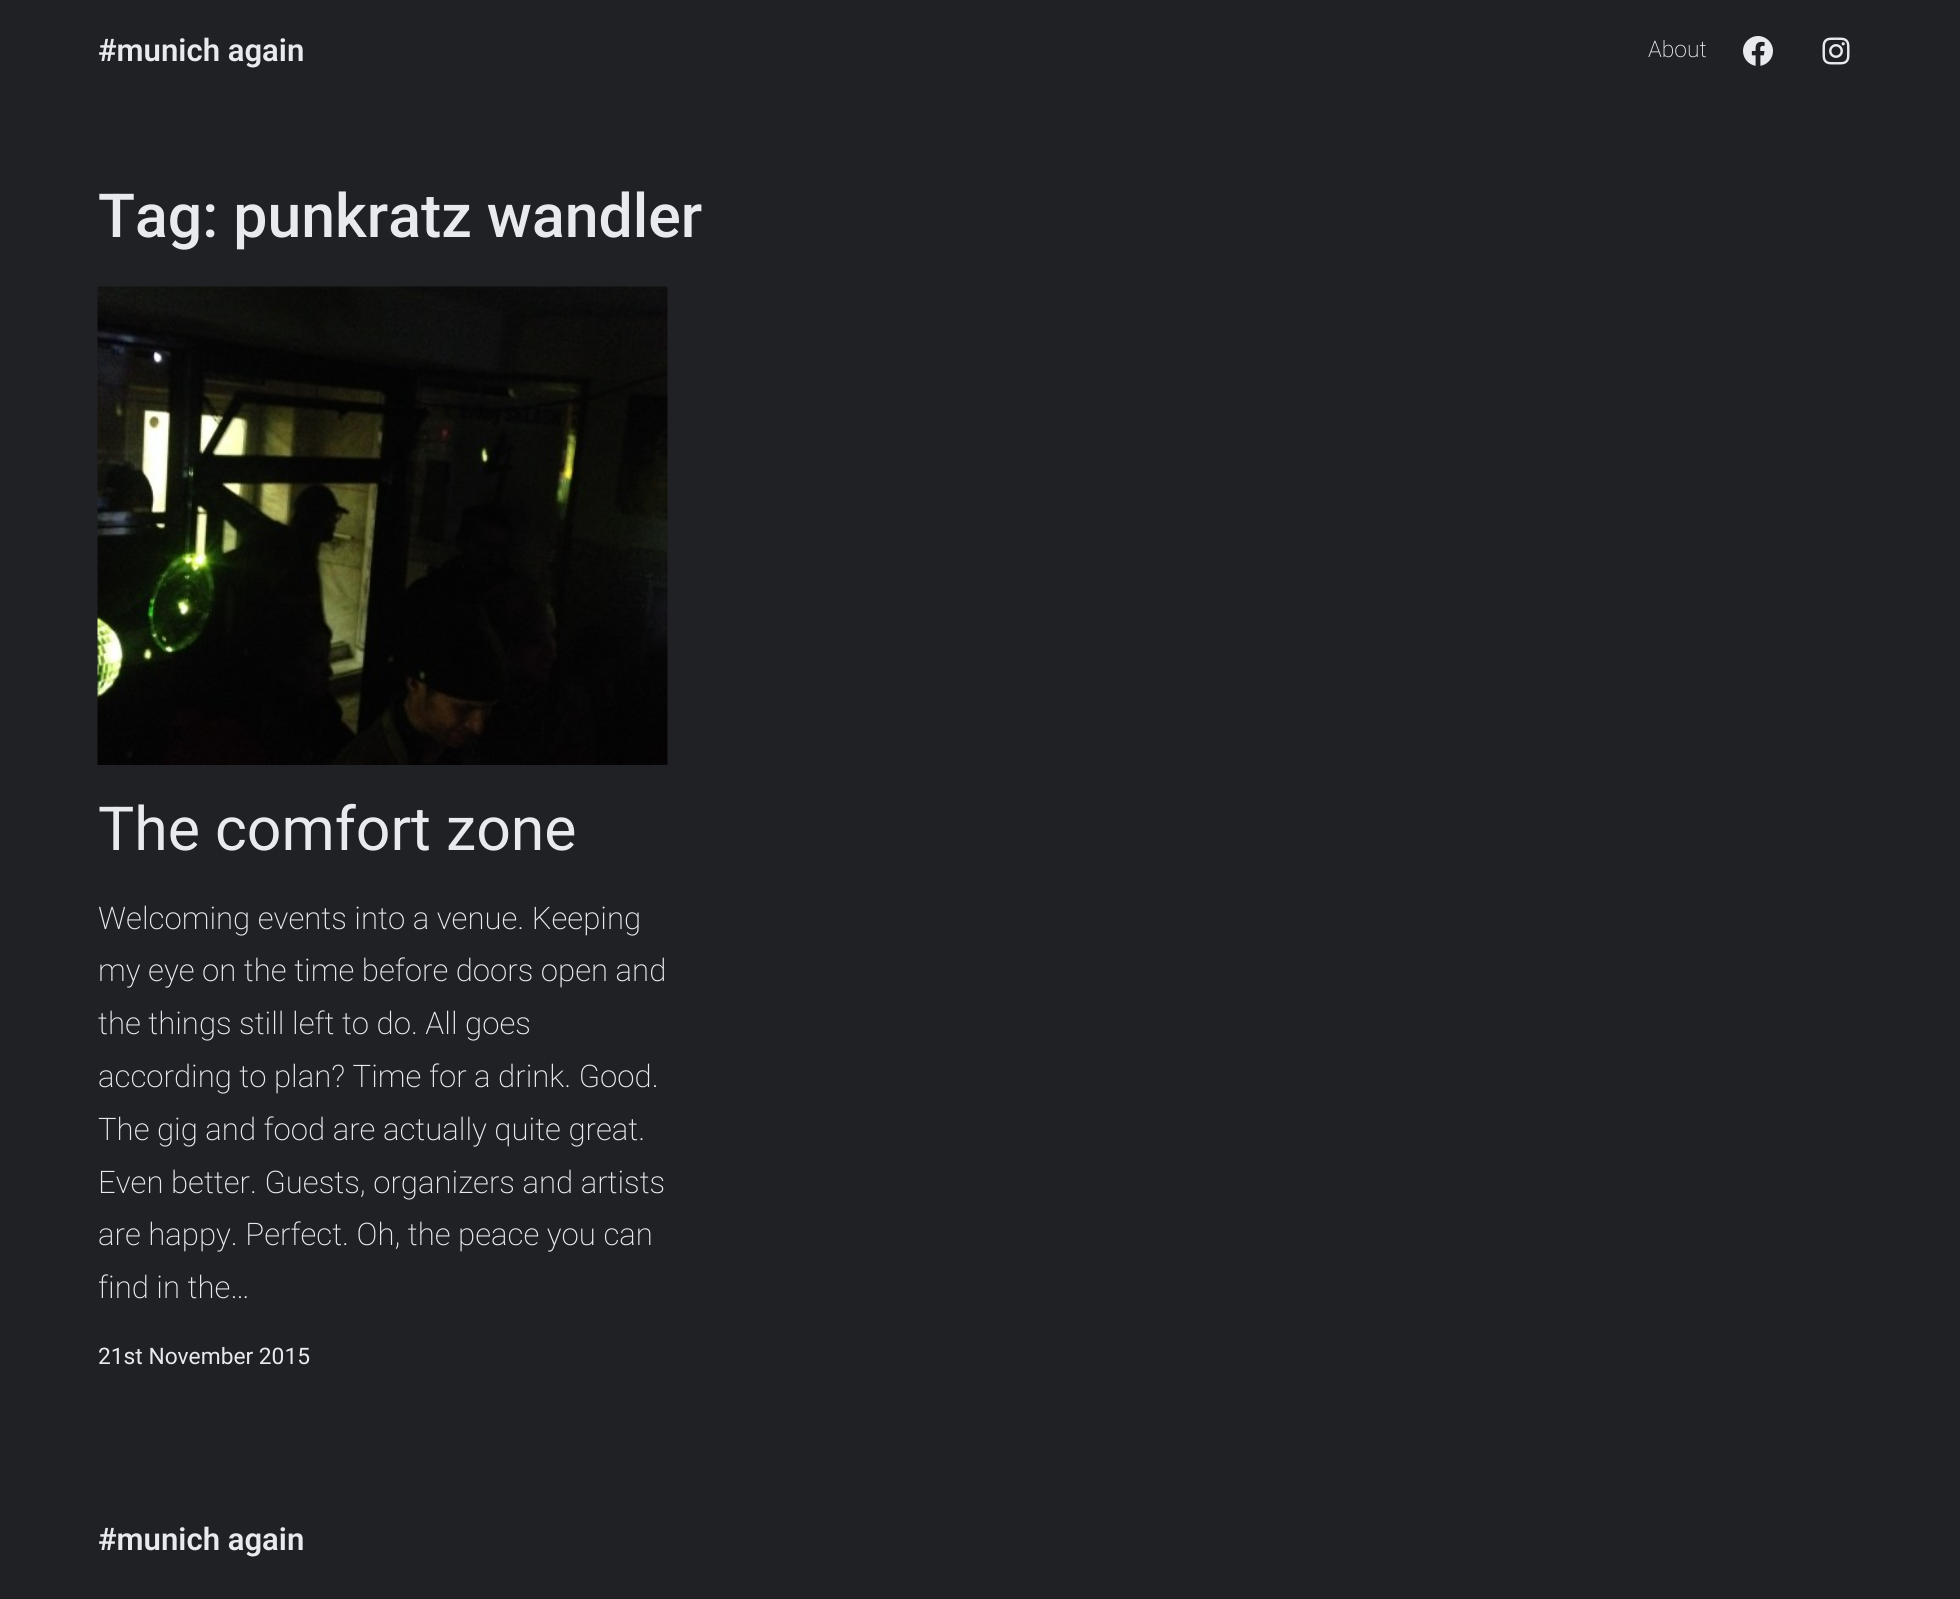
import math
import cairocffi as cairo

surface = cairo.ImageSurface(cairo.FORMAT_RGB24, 1960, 1599)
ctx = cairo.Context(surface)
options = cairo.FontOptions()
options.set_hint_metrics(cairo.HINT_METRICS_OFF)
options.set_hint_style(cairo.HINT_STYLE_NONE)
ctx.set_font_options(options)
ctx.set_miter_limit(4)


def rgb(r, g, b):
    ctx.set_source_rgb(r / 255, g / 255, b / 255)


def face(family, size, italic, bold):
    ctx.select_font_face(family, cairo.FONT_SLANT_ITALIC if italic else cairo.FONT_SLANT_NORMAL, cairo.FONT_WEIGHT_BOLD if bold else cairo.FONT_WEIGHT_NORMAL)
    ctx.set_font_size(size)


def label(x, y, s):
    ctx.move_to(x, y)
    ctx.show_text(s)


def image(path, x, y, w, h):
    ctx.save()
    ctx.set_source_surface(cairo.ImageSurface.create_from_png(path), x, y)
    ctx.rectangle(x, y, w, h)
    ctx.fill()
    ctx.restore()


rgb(32, 33, 36)
ctx.paint()
face('Roboto SemiBold', 31.1, 0, 0)
rgb(232, 234, 237)
label(98, 61, '#munich again')
face('Roboto ExtraLight', 22.75, 0, 0)
label(1648, 57, 'About')
image('image0.png', 1743, 36, 30, 30)
image('image1.png', 1822, 37, 28, 28)
face('Roboto Medium', 60.75, 0, 0)
label(98, 237, 'Tag: punkratz wandler')
image('image2.png', 97, 286, 571, 479)
face('Roboto', 60.75, 0, 0)
label(98, 850, 'The comfort zone')
face('Roboto ExtraLight', 31.1, 0, 0)
label(98, 929, 'Welcoming events into a venue. Keeping')
label(98, 981, 'my eye on the time before doors open and')
label(98, 1034, 'the things still left to do. All goes')
label(98, 1087, 'according to plan? Time for a drink. Good.')
label(98, 1140, 'The gig and food are actually quite great.')
label(98, 1193, 'Even better. Guests, organizers and artists')
label(98, 1245, 'are happy. Perfect. Oh, the peace you can')
label(98, 1298, 'find in the…')
face('Roboto', 22.75, 0, 0)
label(98, 1364, '21st November 2015')
face('Roboto SemiBold', 31.1, 0, 0)
label(98, 1550, '#munich again')
surface.write_to_png('render.png')
